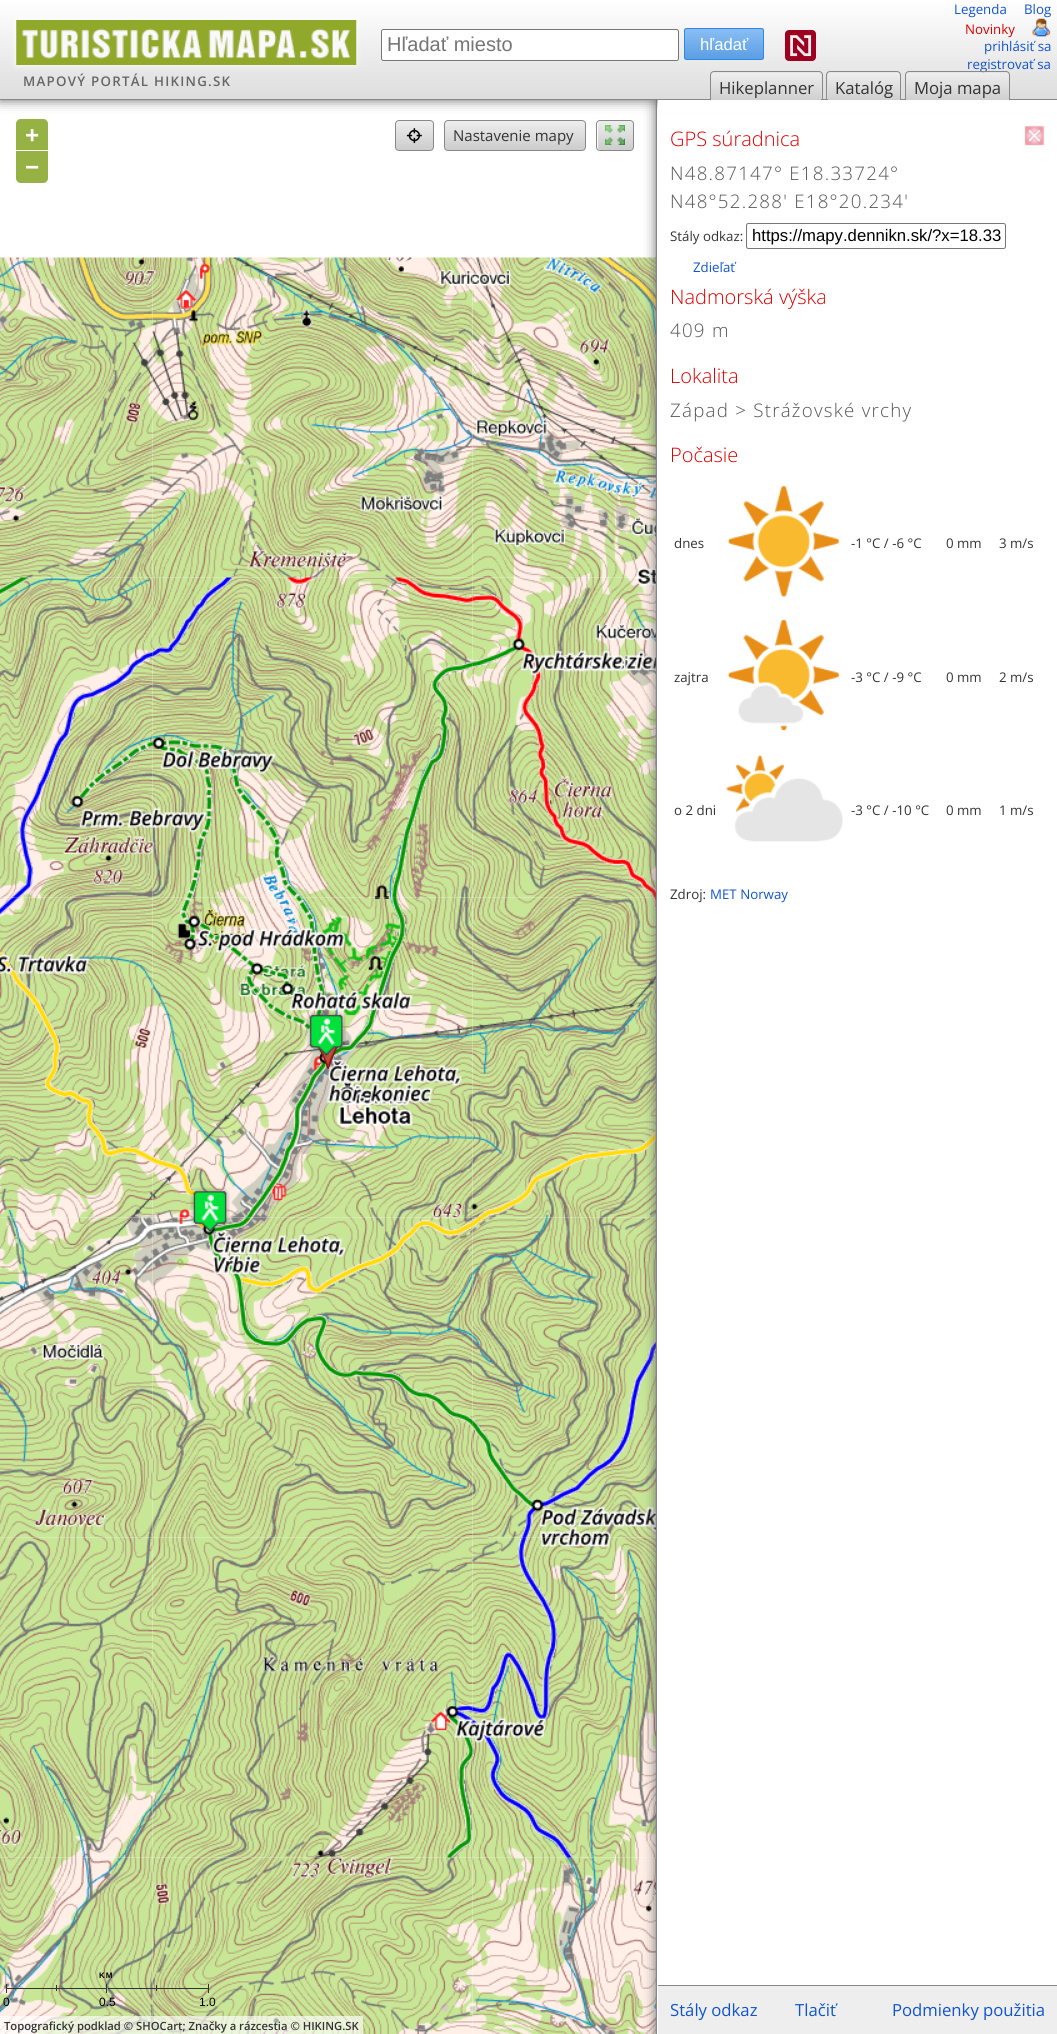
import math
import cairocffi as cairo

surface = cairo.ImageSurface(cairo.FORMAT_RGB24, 1057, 2034)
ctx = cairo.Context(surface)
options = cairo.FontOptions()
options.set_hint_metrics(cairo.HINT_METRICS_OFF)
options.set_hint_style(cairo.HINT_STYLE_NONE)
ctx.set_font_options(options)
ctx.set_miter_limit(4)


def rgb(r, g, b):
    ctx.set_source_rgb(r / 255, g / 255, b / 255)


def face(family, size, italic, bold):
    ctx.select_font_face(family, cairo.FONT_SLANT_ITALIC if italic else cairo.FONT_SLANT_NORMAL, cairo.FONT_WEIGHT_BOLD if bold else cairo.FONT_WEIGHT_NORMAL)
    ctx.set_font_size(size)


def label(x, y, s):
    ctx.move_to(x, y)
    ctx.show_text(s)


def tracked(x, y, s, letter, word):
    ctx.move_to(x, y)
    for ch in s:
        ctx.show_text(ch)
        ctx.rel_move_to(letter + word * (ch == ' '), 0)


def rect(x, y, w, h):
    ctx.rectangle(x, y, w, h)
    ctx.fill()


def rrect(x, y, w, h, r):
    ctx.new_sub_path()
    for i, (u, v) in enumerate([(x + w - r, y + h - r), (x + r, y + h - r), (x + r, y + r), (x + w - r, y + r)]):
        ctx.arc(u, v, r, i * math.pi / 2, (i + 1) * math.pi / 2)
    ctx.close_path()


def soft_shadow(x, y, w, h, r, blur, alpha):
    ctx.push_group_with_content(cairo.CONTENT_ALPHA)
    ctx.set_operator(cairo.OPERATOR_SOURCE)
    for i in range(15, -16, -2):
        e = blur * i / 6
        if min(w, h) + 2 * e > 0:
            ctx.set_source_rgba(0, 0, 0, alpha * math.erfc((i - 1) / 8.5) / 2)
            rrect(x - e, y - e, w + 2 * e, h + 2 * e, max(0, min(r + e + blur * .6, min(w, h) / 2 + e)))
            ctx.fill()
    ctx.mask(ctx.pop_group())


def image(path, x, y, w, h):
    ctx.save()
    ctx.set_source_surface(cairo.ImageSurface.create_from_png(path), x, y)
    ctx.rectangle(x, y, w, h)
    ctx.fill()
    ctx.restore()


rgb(255, 255, 255)
ctx.paint()
image('image10.png', 152, 897, 321, 321)
image('image11.png', 472, 897, 184, 321)
image('image7.png', 152, 577, 321, 321)
image('image13.png', 152, 1217, 321, 321)
image('image9.png', 0, 897, 153, 321)
image('image6.png', 0, 577, 153, 321)
image('image8.png', 472, 577, 184, 321)
image('image4.png', 152, 257, 321, 321)
image('image5.png', 472, 257, 184, 321)
image('image14.png', 472, 1217, 184, 321)
image('image12.png', 0, 1217, 153, 321)
image('image16.png', 152, 1537, 321, 321)
image('image17.png', 472, 1537, 184, 321)
image('image15.png', 0, 1537, 153, 321)
image('image19.png', 152, 1857, 321, 177)
image('image20.png', 472, 1857, 184, 177)
image('image3.png', 0, 257, 153, 321)
image('image25.png', 152, 897, 311, 321)
image('image22.png', 152, 577, 321, 321)
image('image26.png', 476, 897, 180, 321)
image('image23.png', 472, 594, 184, 304)
image('image27.png', 196, 1217, 277, 211)
image('image28.png', 472, 1217, 184, 321)
rgb(102, 102, 102)
soft_shadow(656, 100, 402, 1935, 0, 6, 1)
rgb(255, 255, 255)
rect(657, 100, 400, 1934)
rgb(136, 136, 136)
rect(656, 100, 1, 1934)
rgb(102, 102, 102)
soft_shadow(0, 0, 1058, 100, 0, 6, 1)
gradient = cairo.LinearGradient(0, 0, 0, 99)
gradient.add_color_stop_rgba(0, 1, 1, 1, 1)
gradient.add_color_stop_rgba(1, 0.867, 0.867, 0.867, 1)
ctx.set_source(gradient)
rect(0, 0, 1057, 99)
rgb(136, 136, 136)
rect(0, 99, 1057, 1)
rgb(255, 255, 255)
rrect(381.5, 29.5, 297, 31, 2)
ctx.fill_preserve()
rgb(118, 118, 118)
ctx.set_line_width(1)
ctx.stroke()
face('Liberation Sans', 20, 0, 0)
rgb(117, 117, 117)
label(387, 51, 'Hľadať miesto')
ctx.save()
rrect(684, 28, 80, 32, 2.5)
ctx.clip()
gradient = cairo.LinearGradient(685, 29, 685, 59)
gradient.add_color_stop_rgba(0, 0.541, 0.745, 0.957, 1)
gradient.add_color_stop_rgba(1, 0.357, 0.62, 0.89, 1)
ctx.set_source(gradient)
rect(684, 29, 80, 30)
ctx.restore()
rrect(684.5, 28.5, 79, 31, 2)
rgb(42, 137, 232)
ctx.stroke()
face('Liberation Sans', 16.7, 0, 0)
rgb(255, 255, 255)
label(700, 50, 'hľadať')
image('image0.png', 785, 30, 31, 31)
face('Open Sans', 13.3, 0, 0)
rgb(17, 85, 204)
label(954, 14, 'Legenda')
label(1024, 14, 'Blog')
rgb(221, 0, 0)
label(965, 34, 'Novinky')
image('image1.png', 1032, 18, 19, 19)
rgb(17, 85, 204)
label(984, 51, 'prihlásiť sa')
label(967, 69, 'registrovať sa')
rgb(255, 255, 255)
soft_shadow(16, 20, 340, 45, 0, 3, 1)
image('image2.png', 16, 20, 341, 45)
face('Open Sans SemiBold', 13.3, 0, 0)
rgb(102, 102, 102)
tracked(23, 86, 'MAPOVÝ PORTÁL HIKING.SK', 1.25, 0)
gradient = cairo.LinearGradient(711, 73, 711, 103)
gradient.add_color_stop_rgba(0, 0.933, 0.933, 0.933, 1)
gradient.add_color_stop_rgba(1, 0.8, 0.8, 0.8, 1)
ctx.set_source(gradient)
rrect(711, 73, 110, 30, 2.5)
ctx.fill()
rrect(710.5, 71.5, 112, 32, 3.5)
rgb(136, 136, 136)
ctx.stroke()
face('Open Sans', 16.7, 0, 0)
rgb(51, 51, 51)
label(719, 94, 'Hikeplanner')
gradient = cairo.LinearGradient(828, 73, 828, 103)
gradient.add_color_stop_rgba(0, 0.933, 0.933, 0.933, 1)
gradient.add_color_stop_rgba(1, 0.8, 0.8, 0.8, 1)
ctx.set_source(gradient)
rrect(828, 73, 72, 30, 2.5)
ctx.fill()
rrect(826.5, 71.5, 74, 32, 3.5)
rgb(136, 136, 136)
ctx.stroke()
rgb(51, 51, 51)
label(835, 94, 'Katalóg')
gradient = cairo.LinearGradient(906, 73, 906, 103)
gradient.add_color_stop_rgba(0, 0.933, 0.933, 0.933, 1)
gradient.add_color_stop_rgba(1, 0.8, 0.8, 0.8, 1)
ctx.set_source(gradient)
rrect(906, 73, 103, 30, 2.5)
ctx.fill()
rrect(905.5, 71.5, 104, 32, 3.5)
rgb(136, 136, 136)
ctx.stroke()
rgb(51, 51, 51)
label(914, 94, 'Moja mapa')
rgb(255, 255, 255)
rect(658, 100, 399, 13)
rgb(150, 177, 68)
ctx.new_path()
ctx.move_to(21, 119)
ctx.line_to(43, 119)
ctx.curve_to(46, 119, 48, 121, 48, 124)
ctx.line_to(48, 150)
ctx.line_to(16, 150)
ctx.line_to(16, 124)
ctx.curve_to(16, 121, 18, 119, 21, 119)
ctx.close_path()
ctx.fill()
face('Open Sans', 25, 0, 1)
rgb(255, 255, 255)
label(25, 144, '+')
rgb(150, 177, 68)
ctx.new_path()
ctx.move_to(16, 151)
ctx.line_to(48, 151)
ctx.line_to(48, 178)
ctx.curve_to(48, 181, 46, 183, 43, 183)
ctx.line_to(21, 183)
ctx.curve_to(18, 183, 16, 181, 16, 178)
ctx.close_path()
ctx.fill()
rgb(255, 255, 255)
label(25, 176, '−')
image('image18.png', 0, 1857, 153, 177)
image('image24.png', 0, 897, 153, 266)
image('image21.png', 0, 577, 153, 321)
image('image29.png', 446, 1704, 27, 154)
image('image30.png', 472, 1537, 139, 321)
image('image32.png', 317, 1047, 21, 22)
image('image31.png', 190, 1011, 156, 222)
face('Liberation Sans', 8, 0, 1)
rgb(0, 0, 0)
tracked(99, 1978, 'KM', 1, 0)
rgb(51, 51, 51)
rect(6, 1984, 1, 9)
rect(56, 1985, 1, 6)
rect(106, 1984, 1, 9)
rect(108, 1988, 100, 1)
rect(156, 1985, 1, 6)
rect(208, 1984, 1, 9)
rect(6, 1988, 50, 1)
rect(56, 1988, 50, 1)
face('Liberation Sans', 12, 0, 0)
rgb(0, 0, 0)
label(3, 2006, '0')
label(99, 2006, '0.5')
label(199, 2006, '1.0')
ctx.set_source_rgba(1, 1, 1, 0.65)
rect(0, 2016, 363, 18)
face('Open Sans SemiBold', 11.25, 0, 0)
rgb(51, 51, 51)
label(4, 2030, 'Topografický podklad © SHOCart; Značky a rázcestia © HIKING.SK')
gradient = cairo.LinearGradient(396, 121, 396, 150)
gradient.add_color_stop_rgba(0, 0.933, 0.933, 0.933, 1)
gradient.add_color_stop_rgba(1, 0.8, 0.8, 0.8, 1)
ctx.set_source(gradient)
rrect(396, 121, 37, 29, 2.5)
ctx.fill()
image('image33.png', 406, 128, 16, 16)
rrect(395.5, 120.5, 38, 30, 3.5)
rgb(136, 136, 136)
ctx.stroke()
gradient = cairo.LinearGradient(445, 121, 445, 150)
gradient.add_color_stop_rgba(0, 0.933, 0.933, 0.933, 1)
gradient.add_color_stop_rgba(1, 0.8, 0.8, 0.8, 1)
ctx.set_source(gradient)
rrect(445, 121, 140, 29, 2.5)
ctx.fill()
rrect(444.5, 120.5, 141, 30, 3.5)
rgb(136, 136, 136)
ctx.stroke()
face('Open Sans', 15, 0, 0)
rgb(51, 51, 51)
label(453, 141, 'Nastavenie mapy')
gradient = cairo.LinearGradient(598, 121, 598, 150)
gradient.add_color_stop_rgba(0, 0.933, 0.933, 0.933, 1)
gradient.add_color_stop_rgba(1, 0.8, 0.8, 0.8, 1)
ctx.set_source(gradient)
rrect(598, 121, 35, 29, 2.5)
ctx.fill()
image('image34.png', 605, 125, 20, 20)
rrect(596.5, 120.5, 37, 30, 3.5)
rgb(136, 136, 136)
ctx.stroke()
face('Open Sans Light', 20, 0, 0)
rgb(221, 0, 0)
label(670, 146, 'GPS súradnica')
face('Open Sans Light', 18.7, 0, 0)
rgb(85, 85, 85)
tracked(670, 180, 'N48.87147° E18.33724°', 1.25, 0)
tracked(670, 208, 'N48°52.288\' E18°20.234\'', 1.25, 0)
face('Open Sans', 13.3, 0, 0)
rgb(51, 51, 51)
label(670, 241, 'Stály odkaz:')
rrect(746.5, 223.5, 259, 25, 2)
rgb(118, 118, 118)
ctx.stroke()
face('Liberation Sans', 16.7, 0, 0)
rgb(0, 0, 0)
label(752, 241, 'https://mapy.dennikn.sk/?x=18.33')
face('Open Sans', 13.3, 0, 0)
rgb(17, 85, 204)
label(693, 272, 'Zdieľať')
face('Open Sans Light', 20, 0, 0)
rgb(221, 0, 0)
label(670, 304, 'Nadmorská výška')
face('Open Sans Light', 18.7, 0, 0)
rgb(85, 85, 85)
tracked(670, 337, '409 m', 1.25, 0)
face('Open Sans Light', 20, 0, 0)
rgb(221, 0, 0)
label(670, 383, 'Lokalita')
face('Open Sans Light', 18.7, 0, 0)
rgb(85, 85, 85)
tracked(670, 417, 'Západ > Strážovské vrchy', 1.25, 0)
face('Open Sans Light', 20, 0, 0)
rgb(221, 0, 0)
label(670, 462, 'Počasie')
face('Open Sans', 13.3, 0, 0)
rgb(51, 51, 51)
label(674, 548, 'dnes')
image('image35.png', 728, 485, 112, 112)
label(851, 548, '-1 °C / -6 °C')
label(946, 548, '0 mm')
label(999, 548, '3 m/s')
label(674, 682, 'zajtra')
image('image36.png', 728, 619, 112, 112)
label(851, 682, '-3 °C / -9 °C')
label(946, 682, '0 mm')
label(999, 682, '2 m/s')
label(674, 815, 'o 2 dni')
image('image37.png', 726, 755, 117, 87)
label(851, 815, '-3 °C / -10 °C')
label(946, 815, '0 mm')
label(999, 815, '1 m/s')
label(670, 899, 'Zdroj:')
rgb(17, 85, 204)
label(710, 899, 'MET Norway')
image('image38.png', 1024, 125, 21, 21)
rgb(238, 238, 238)
rect(658, 1986, 399, 48)
rgb(136, 136, 136)
rect(658, 1985, 399, 1)
face('Open Sans', 16.7, 0, 0)
rgb(17, 85, 204)
label(670, 2016, 'Stály odkaz')
label(795, 2016, 'Tlačiť')
label(892, 2016, 'Podmienky použitia')
surface.write_to_png('render.png')
